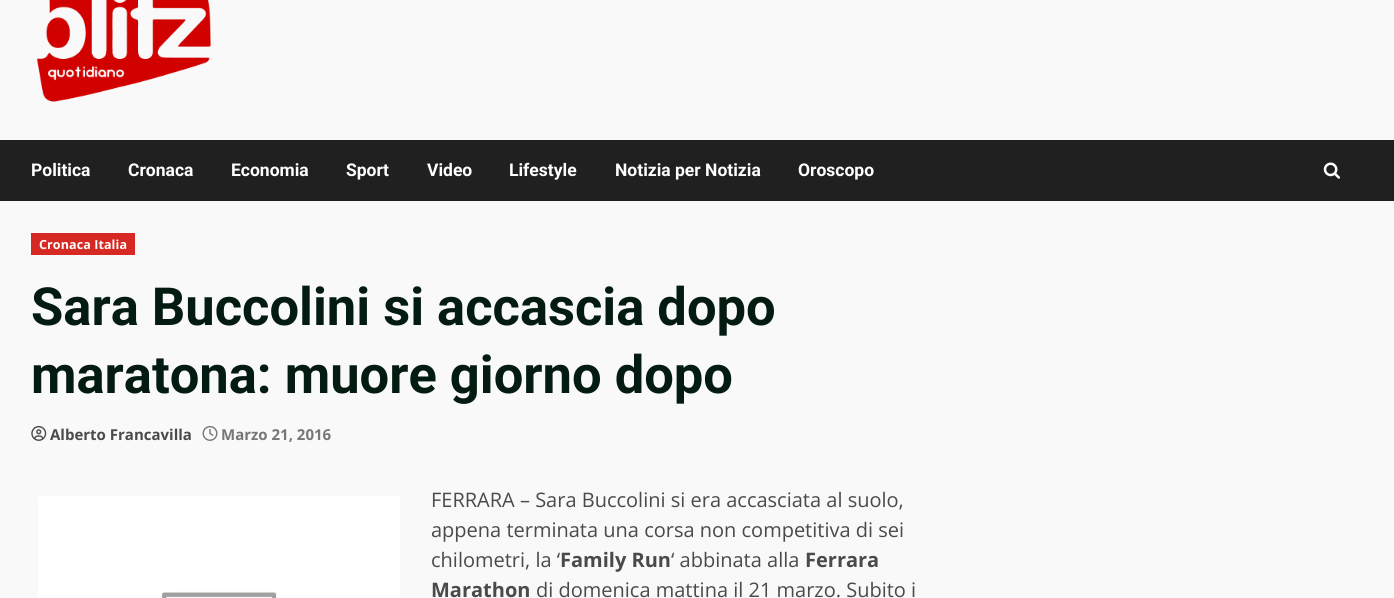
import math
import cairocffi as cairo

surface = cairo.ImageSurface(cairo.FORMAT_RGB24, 1394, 598)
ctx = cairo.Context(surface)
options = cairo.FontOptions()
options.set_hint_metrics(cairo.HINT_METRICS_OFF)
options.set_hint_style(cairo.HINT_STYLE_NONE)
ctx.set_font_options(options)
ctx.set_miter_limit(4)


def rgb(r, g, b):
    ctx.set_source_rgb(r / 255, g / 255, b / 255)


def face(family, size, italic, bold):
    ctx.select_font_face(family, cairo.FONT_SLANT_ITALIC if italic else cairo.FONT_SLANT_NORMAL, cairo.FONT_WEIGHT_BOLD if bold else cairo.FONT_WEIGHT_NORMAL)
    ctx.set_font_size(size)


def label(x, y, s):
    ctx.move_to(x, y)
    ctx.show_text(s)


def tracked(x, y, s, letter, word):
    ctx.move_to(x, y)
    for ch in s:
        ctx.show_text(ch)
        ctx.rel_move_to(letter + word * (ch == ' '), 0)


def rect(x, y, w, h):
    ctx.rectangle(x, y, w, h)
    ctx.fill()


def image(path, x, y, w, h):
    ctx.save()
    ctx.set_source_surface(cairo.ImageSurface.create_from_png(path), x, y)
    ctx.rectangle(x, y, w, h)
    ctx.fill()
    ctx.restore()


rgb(249, 249, 249)
ctx.paint()
image('image0.png', 36, 0, 175, 102)
rgb(32, 32, 32)
rect(0, 140, 1394, 61)
face('Roboto', 17.5, 0, 1)
rgb(255, 255, 255)
label(31, 176, 'Politica')
label(128, 176, 'Cronaca')
label(231, 176, 'Economia')
label(346, 176, 'Sport')
label(427, 176, 'Video')
label(509, 176, 'Lifestyle')
label(615, 176, 'Notizia per Notizia')
label(798, 176, 'Oroscopo')
image('image1.png', 1323, 162, 17, 17)
rgb(215, 41, 36)
rect(31, 233, 104, 22)
face('Open Sans', 12.5, 0, 1)
rgb(255, 255, 255)
tracked(39, 249, 'Cronaca Italia', 0.1, 0)
face('Roboto', 52.5, 0, 1)
rgb(3, 27, 17)
label(31, 325, 'Sara Buccolini si accascia dopo')
label(31, 393, 'maratona: muore giorno dopo')
image('image2.png', 31, 425, 16, 16)
face('Open Sans', 15, 0, 1)
rgb(74, 74, 74)
label(50, 440, 'Alberto Francavilla')
image('image3.png', 202, 426, 16, 15)
rgb(118, 118, 118)
label(221, 440, 'Marzo 21, 2016')
image('image4.png', 38, 496, 362, 102)
face('Open Sans', 20, 0, 0)
rgb(74, 74, 74)
label(431, 507, 'FERRARA – Sara Buccolini si era accasciata al suolo,')
label(431, 537, 'appena terminata una corsa non competitiva di sei')
label(431, 567, 'chilometri, la ‘')
face('Open Sans', 20, 0, 1)
label(560, 567, 'Family Run')
face('Open Sans', 20, 0, 0)
label(671, 567, '‘ abbinata alla')
face('Open Sans', 20, 0, 1)
label(805, 567, 'Ferrara')
label(431, 597, 'Marathon')
face('Open Sans', 20, 0, 0)
label(536, 597, 'di domenica mattina il 21 marzo. Subito i')
surface.write_to_png('render.png')
